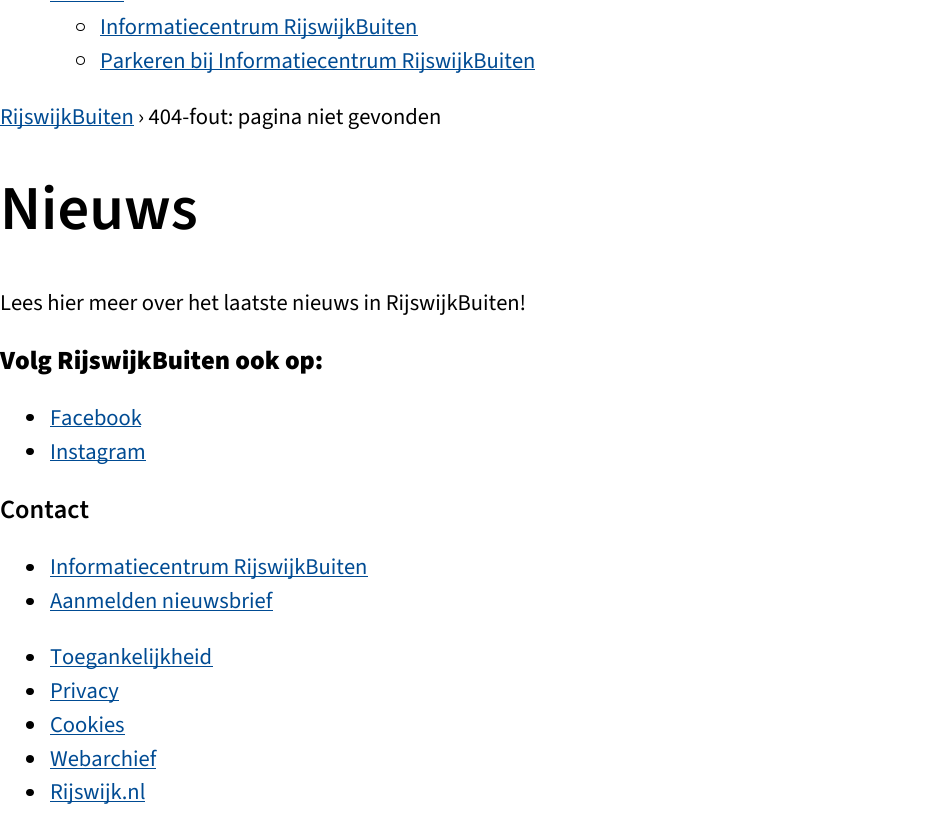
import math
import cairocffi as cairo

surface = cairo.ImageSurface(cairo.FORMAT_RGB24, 931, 832)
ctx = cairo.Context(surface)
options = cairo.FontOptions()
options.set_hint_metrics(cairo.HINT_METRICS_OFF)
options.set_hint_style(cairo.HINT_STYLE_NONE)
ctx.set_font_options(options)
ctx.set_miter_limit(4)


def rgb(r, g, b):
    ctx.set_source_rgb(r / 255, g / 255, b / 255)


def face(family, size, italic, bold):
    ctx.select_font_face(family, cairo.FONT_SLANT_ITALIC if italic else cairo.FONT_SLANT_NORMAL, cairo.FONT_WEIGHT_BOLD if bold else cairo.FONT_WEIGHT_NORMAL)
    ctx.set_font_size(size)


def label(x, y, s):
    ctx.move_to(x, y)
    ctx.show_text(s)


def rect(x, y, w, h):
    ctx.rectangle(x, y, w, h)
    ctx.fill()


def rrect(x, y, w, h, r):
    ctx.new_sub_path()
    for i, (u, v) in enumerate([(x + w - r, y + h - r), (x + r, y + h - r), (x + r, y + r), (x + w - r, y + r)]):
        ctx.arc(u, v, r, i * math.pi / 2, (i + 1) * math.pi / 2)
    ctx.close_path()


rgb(255, 255, 255)
ctx.paint()
rgb(0, 75, 147)
rect(50, 1, 74, 1)
rrect(76.5, 23.5, 8, 7, 3.5)
rgb(0, 0, 0)
ctx.set_line_width(1)
ctx.stroke()
rgb(0, 75, 147)
rect(100, 35, 318, 1)
face('Source Sans 3', 22.5, 0, 0)
label(100, 34, 'Informatiecentrum RijswijkBuiten')
ctx.new_path()
ctx.arc(80.5, 60.5, 4, 0, 2 * math.pi)
rgb(0, 0, 0)
ctx.stroke()
rgb(0, 75, 147)
rect(100, 69, 435, 1)
label(100, 68, 'Parkeren bij Informatiecentrum RijswijkBuiten')
rect(0, 125, 134, 1)
label(0, 124, 'RijswijkBuiten')
rgb(0, 0, 0)
label(138, 124, '› 404-fout: pagina niet gevonden')
face('Source Sans 3 SemiBold', 62.5, 0, 0)
label(0, 229, 'Nieuws')
face('Source Sans 3', 22.5, 0, 0)
label(0, 310, 'Lees hier meer over het laatste nieuws in RijswijkBuiten!')
face('Source Sans 3 Black', 26.25, 0, 0)
label(0, 369, 'Volg RijswijkBuiten ook op:')
rrect(26, 414, 8, 7, 3.5)
ctx.fill()
face('Source Sans 3', 22.5, 0, 0)
rgb(0, 75, 147)
label(50, 425, 'Facebook')
rect(50, 426, 91, 1)
rgb(0, 0, 0)
rrect(26, 448, 8, 7, 3.5)
ctx.fill()
rgb(0, 75, 147)
rect(50, 460, 96, 1)
label(50, 459, 'Instagram')
face('Source Sans 3 SemiBold', 26.25, 0, 0)
rgb(0, 0, 0)
label(0, 518, 'Contact')
rrect(26, 564, 8, 7, 3.5)
ctx.fill()
rgb(0, 75, 147)
rect(50, 576, 318, 1)
face('Source Sans 3', 22.5, 0, 0)
label(50, 574, 'Informatiecentrum RijswijkBuiten')
rgb(0, 0, 0)
rrect(26, 598, 8, 7, 3.5)
ctx.fill()
rgb(0, 75, 147)
label(50, 608, 'Aanmelden nieuwsbrief')
rect(50, 610, 223, 1)
rgb(0, 0, 0)
rrect(26, 654, 8, 7, 3.5)
ctx.fill()
rgb(0, 75, 147)
rect(50, 666, 163, 1)
label(50, 664, 'Toegankelijkheid')
rgb(0, 0, 0)
rrect(26, 688, 8, 7, 3.5)
ctx.fill()
rgb(0, 75, 147)
rect(50, 700, 69, 1)
label(50, 698, 'Privacy')
rgb(0, 0, 0)
ctx.new_path()
ctx.arc(30, 725, 4, 0, 2 * math.pi)
ctx.fill()
rgb(0, 75, 147)
label(50, 732, 'Cookies')
rect(50, 734, 75, 1)
rgb(0, 0, 0)
ctx.new_path()
ctx.arc(30, 759, 4, 0, 2 * math.pi)
ctx.fill()
rgb(0, 75, 147)
label(50, 766, 'Webarchief')
rect(50, 768, 106, 1)
rgb(0, 0, 0)
rrect(26, 789, 8, 7, 3.5)
ctx.fill()
rgb(0, 75, 147)
rect(50, 801, 95, 1)
label(50, 799, 'Rijswijk.nl')
surface.write_to_png('render.png')
